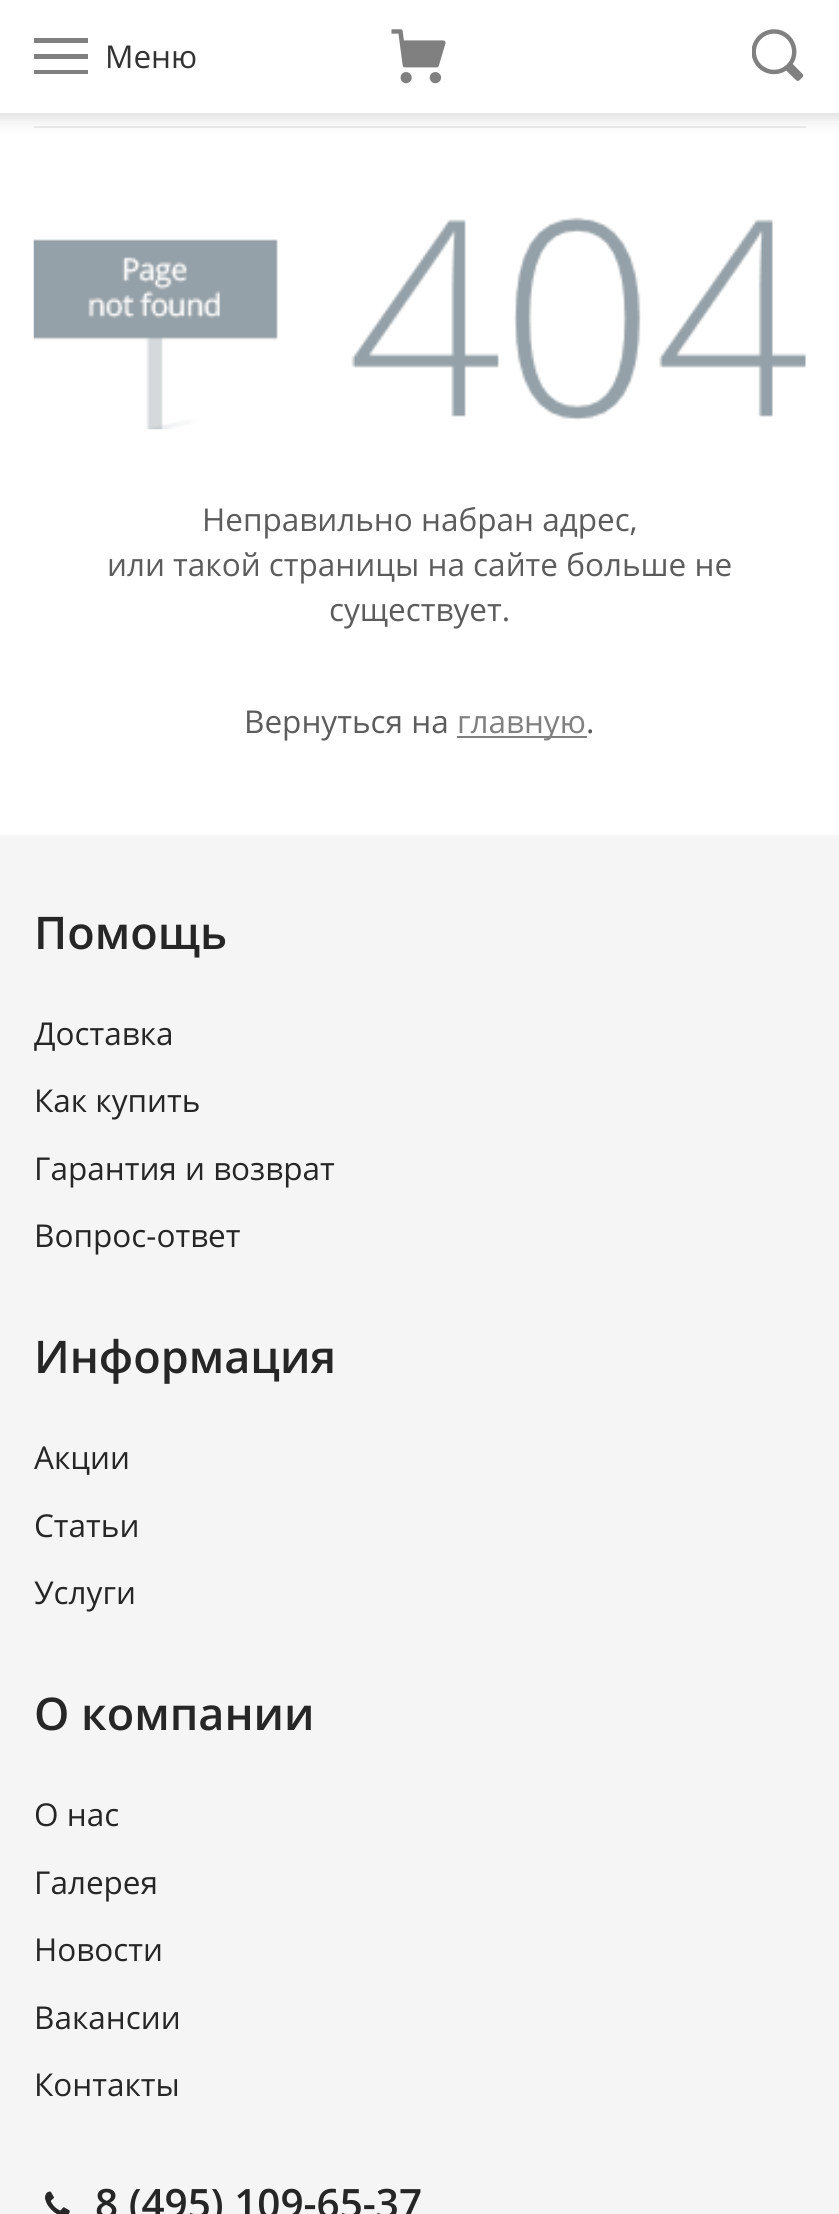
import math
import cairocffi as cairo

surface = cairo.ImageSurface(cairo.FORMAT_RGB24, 839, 2214)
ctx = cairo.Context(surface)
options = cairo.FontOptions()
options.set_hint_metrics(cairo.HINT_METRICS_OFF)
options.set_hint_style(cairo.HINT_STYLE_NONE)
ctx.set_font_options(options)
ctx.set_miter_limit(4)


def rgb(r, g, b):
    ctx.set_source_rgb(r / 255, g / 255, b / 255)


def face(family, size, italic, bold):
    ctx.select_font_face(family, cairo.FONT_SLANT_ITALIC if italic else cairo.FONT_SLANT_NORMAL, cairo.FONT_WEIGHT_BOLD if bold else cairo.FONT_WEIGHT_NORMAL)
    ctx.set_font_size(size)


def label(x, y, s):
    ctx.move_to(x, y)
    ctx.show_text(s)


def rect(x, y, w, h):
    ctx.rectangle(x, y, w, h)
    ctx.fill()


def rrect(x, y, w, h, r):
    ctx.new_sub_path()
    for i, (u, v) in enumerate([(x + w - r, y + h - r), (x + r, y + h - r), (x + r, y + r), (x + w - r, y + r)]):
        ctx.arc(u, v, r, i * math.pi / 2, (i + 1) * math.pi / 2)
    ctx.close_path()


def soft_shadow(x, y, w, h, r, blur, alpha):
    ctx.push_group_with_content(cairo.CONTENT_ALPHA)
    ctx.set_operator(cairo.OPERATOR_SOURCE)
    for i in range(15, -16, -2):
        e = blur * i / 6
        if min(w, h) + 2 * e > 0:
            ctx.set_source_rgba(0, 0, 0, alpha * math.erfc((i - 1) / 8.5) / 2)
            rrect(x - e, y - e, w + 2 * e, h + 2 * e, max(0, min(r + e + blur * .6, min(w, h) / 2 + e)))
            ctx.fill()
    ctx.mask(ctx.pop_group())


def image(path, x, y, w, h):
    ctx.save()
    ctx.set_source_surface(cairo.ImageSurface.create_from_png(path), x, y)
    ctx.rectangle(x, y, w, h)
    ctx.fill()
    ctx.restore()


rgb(255, 255, 255)
ctx.paint()
rgb(237, 237, 237)
rect(34, 126, 772, 2)
rgb(0, 0, 0)
soft_shadow(-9, -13, 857, 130, 0, 9, 0.15)
rgb(255, 255, 255)
rect(0, 0, 839, 113)
rgb(128, 128, 128)
ctx.new_path()
ctx.move_to(34, 40)
ctx.line_to(34, 43)
ctx.line_to(88, 43)
ctx.line_to(88, 38)
ctx.line_to(34, 38)
ctx.close_path()
ctx.move_to(34, 56)
ctx.line_to(34, 59)
ctx.line_to(88, 59)
ctx.line_to(88, 54)
ctx.line_to(34, 54)
ctx.close_path()
ctx.move_to(34, 72)
ctx.line_to(34, 74)
ctx.line_to(88, 74)
ctx.line_to(88, 70)
ctx.line_to(34, 70)
ctx.close_path()
ctx.fill()
face('Open Sans', 31.5, 0, 0)
rgb(51, 51, 51)
label(105, 68, 'Меню')
image('image0.png', 391, 29, 55, 55)
image('image1.png', 752, 29, 52, 52)
image('image2.png', 33, 217, 773, 213)
rgb(92, 92, 92)
label(202, 531, 'Неправильно набран адрес,')
label(107, 576, 'или такой страницы на сайте больше не')
label(329, 621, 'существует.')
label(244, 733, 'Вернуться на')
rgb(128, 128, 128)
rect(457, 736, 130, 2)
label(457, 733, 'главную')
rgb(92, 92, 92)
label(586, 733, '.')
rgb(245, 245, 245)
rect(0, 835, 839, 1379)
face('Open Sans SemiBold', 45, 0, 0)
rgb(38, 38, 38)
label(34, 949, 'Помощь')
face('Open Sans', 31.5, 0, 0)
label(34, 1045, 'Доставка')
label(34, 1112, 'Как купить')
label(34, 1180, 'Гарантия и возврат')
label(34, 1247, 'Вопрос-ответ')
face('Open Sans SemiBold', 45, 0, 0)
label(34, 1373, 'Информация')
face('Open Sans', 31.5, 0, 0)
label(34, 1469, 'Акции')
label(34, 1537, 'Статьи')
label(34, 1604, 'Услуги')
face('Open Sans SemiBold', 45, 0, 0)
label(34, 1730, 'О компании')
face('Open Sans', 31.5, 0, 0)
label(34, 1826, 'О нас')
label(34, 1894, 'Галерея')
label(34, 1961, 'Новости')
label(34, 2029, 'Вакансии')
label(34, 2096, 'Контакты')
image('image3.png', 45, 2191, 25, 23)
face('Open Sans SemiBold', 40.5, 0, 0)
label(95, 2218, '8 (495) 109-65-37')
surface.write_to_png('render.png')
